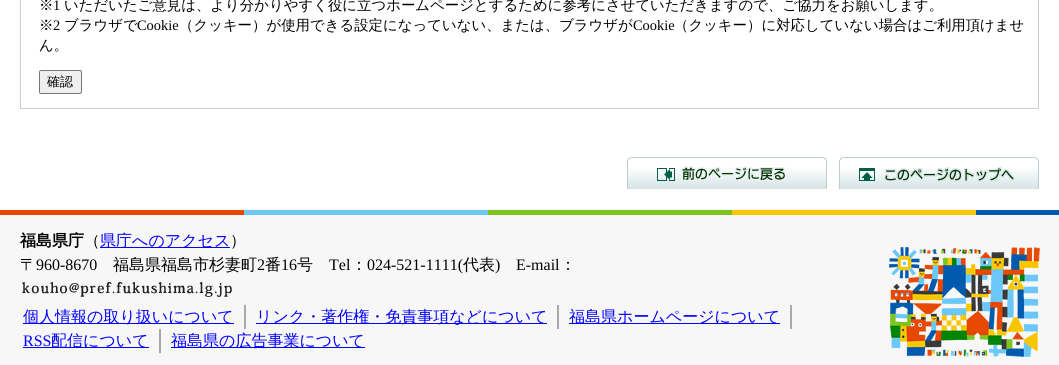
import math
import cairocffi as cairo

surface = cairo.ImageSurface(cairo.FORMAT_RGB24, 1059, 365)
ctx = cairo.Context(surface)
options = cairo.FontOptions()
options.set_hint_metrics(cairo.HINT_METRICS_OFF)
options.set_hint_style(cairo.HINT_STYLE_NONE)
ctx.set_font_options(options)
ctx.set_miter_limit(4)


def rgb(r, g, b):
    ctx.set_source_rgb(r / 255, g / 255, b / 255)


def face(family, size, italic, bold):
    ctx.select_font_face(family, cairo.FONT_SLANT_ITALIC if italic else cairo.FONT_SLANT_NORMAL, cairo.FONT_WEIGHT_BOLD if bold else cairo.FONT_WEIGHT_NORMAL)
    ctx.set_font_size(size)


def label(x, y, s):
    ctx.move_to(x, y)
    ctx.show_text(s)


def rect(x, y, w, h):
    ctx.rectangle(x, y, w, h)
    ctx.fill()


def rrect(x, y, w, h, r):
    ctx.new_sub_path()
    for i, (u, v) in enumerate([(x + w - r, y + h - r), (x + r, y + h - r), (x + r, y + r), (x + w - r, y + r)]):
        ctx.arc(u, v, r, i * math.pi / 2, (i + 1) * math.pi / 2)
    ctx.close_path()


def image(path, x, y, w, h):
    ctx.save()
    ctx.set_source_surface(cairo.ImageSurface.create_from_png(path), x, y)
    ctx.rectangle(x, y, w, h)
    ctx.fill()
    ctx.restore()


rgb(255, 255, 255)
ctx.paint()
ctx.rectangle(20.5, -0.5, 1018, 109)
rgb(204, 204, 204)
ctx.set_line_width(1)
ctx.stroke()
face('WenQuanYi Zen Hei Medium', 14.4, 0, 0)
rgb(0, 0, 0)
label(39, 10, '※')
face('Liberation Serif', 14.4, 0, 0)
label(53, 10, '1')
face('WenQuanYi Zen Hei Medium', 14.4, 0, 0)
label(64, 10, 'いただいたご意見は、より分かりやすく役に立つホームページとするために参考にさせていただきますので、ご協力をお願いします。')
label(39, 30, '※')
face('Liberation Serif', 14.4, 0, 0)
label(53, 30, '2')
face('WenQuanYi Zen Hei Medium', 14.4, 0, 0)
label(64, 30, 'ブラウザで')
face('Liberation Serif', 14.4, 0, 0)
label(137, 30, 'Cookie')
face('WenQuanYi Zen Hei Medium', 14.4, 0, 0)
label(179, 30, '（クッキー）が使用できる設定になっていない、または、ブラウザが')
face('Liberation Serif', 14.4, 0, 0)
label(633, 30, 'Cookie')
face('WenQuanYi Zen Hei Medium', 14.4, 0, 0)
label(674, 30, '（クッキー）に対応していない場合はご利用頂けませ')
label(39, 50, 'ん。')
rgb(239, 239, 239)
rrect(39.5, 70.5, 42, 23, 1.5)
ctx.fill_preserve()
rgb(118, 118, 118)
ctx.stroke()
face('WenQuanYi Zen Hei Medium', 13, 0, 0)
rgb(0, 0, 0)
label(47, 86, '確認')
image('image0.png', 627, 157, 200, 32)
image('image1.png', 681, 165, 105, 16)
image('image2.png', 839, 157, 200, 32)
image('image3.png', 884, 166, 131, 16)
rgb(247, 247, 247)
rect(0, 209, 1059, 156)
image('image4.png', 0, 210, 1059, 5)
image('image5.png', 889, 247, 151, 110)
face('WenQuanYi Zen Hei', 16, 0, 1)
rgb(0, 0, 0)
label(20, 246, '福島県庁')
face('WenQuanYi Zen Hei Medium', 16, 0, 0)
label(84, 246, '（')
rgb(0, 0, 255)
rect(100, 247, 130, 1)
label(100, 246, '県庁へのアクセス')
rgb(0, 0, 0)
label(230, 246, '）')
label(20, 270, '〒')
face('Liberation Serif', 16, 0, 0)
label(36, 270, '960-8670')
face('WenQuanYi Zen Hei Medium', 16, 0, 0)
label(113, 270, '福島県福島市杉妻町')
face('Liberation Serif', 16, 0, 0)
label(257, 270, '2')
face('WenQuanYi Zen Hei Medium', 16, 0, 0)
label(265, 270, '番')
face('Liberation Serif', 16, 0, 0)
label(281, 270, '16')
face('WenQuanYi Zen Hei Medium', 16, 0, 0)
label(297, 270, '号')
face('Liberation Serif', 16, 0, 0)
label(329, 270, 'Tel')
face('WenQuanYi Zen Hei Medium', 16, 0, 0)
label(351, 270, '：')
face('Liberation Serif', 16, 0, 0)
label(367, 270, '024-521-1111(')
face('WenQuanYi Zen Hei Medium', 16, 0, 0)
label(463, 270, '代表')
face('Liberation Serif', 16, 0, 0)
label(495, 270, ')')
label(516, 270, 'E-mail')
face('WenQuanYi Zen Hei Medium', 16, 0, 0)
label(560, 270, '：')
image('image6.png', 22, 282, 210, 15)
rgb(169, 169, 169)
rect(244, 305, 2, 24)
rgb(0, 0, 255)
rect(23, 323, 211, 1)
label(23, 322, '個人情報の取り扱いについて')
rgb(169, 169, 169)
rect(557, 305, 2, 24)
rgb(0, 0, 255)
rect(256, 323, 291, 1)
label(256, 322, 'リンク・著作権・免責事項などについて')
rgb(169, 169, 169)
rect(790, 305, 2, 24)
rgb(0, 0, 255)
rect(569, 323, 211, 1)
label(569, 322, '福島県ホームページについて')
rgb(169, 169, 169)
rect(159, 329, 2, 24)
face('Liberation Serif', 16, 0, 0)
rgb(0, 0, 255)
label(23, 346, 'RSS')
rect(23, 347, 126, 1)
face('WenQuanYi Zen Hei Medium', 16, 0, 0)
label(51, 346, '配信について')
rect(171, 347, 194, 1)
label(171, 346, '福島県の広告事業について')
surface.write_to_png('render.png')
